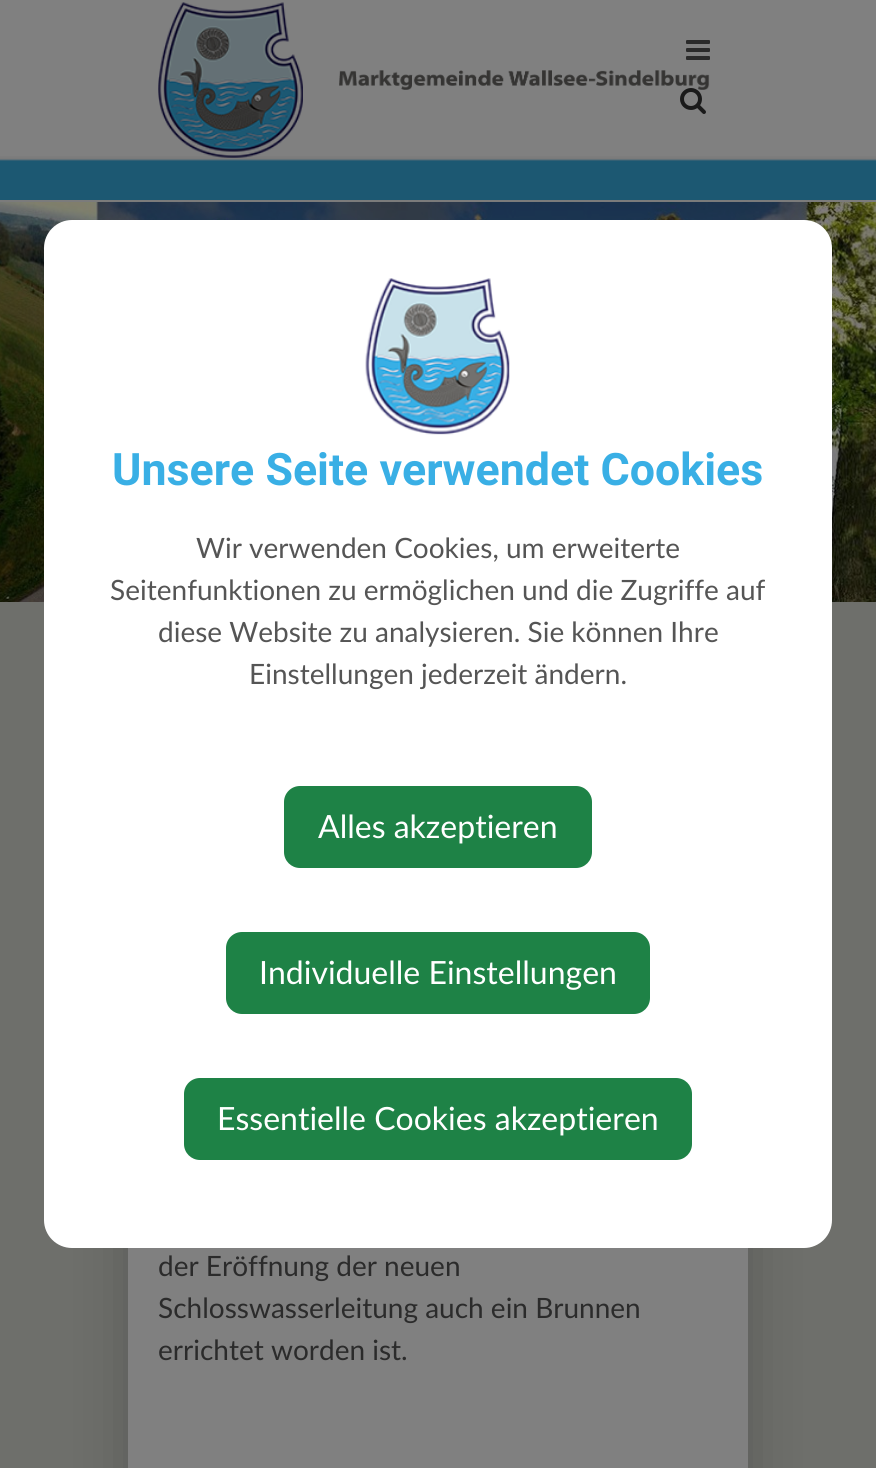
import math
import cairocffi as cairo

surface = cairo.ImageSurface(cairo.FORMAT_RGB24, 876, 1468)
ctx = cairo.Context(surface)
options = cairo.FontOptions()
options.set_hint_metrics(cairo.HINT_METRICS_OFF)
options.set_hint_style(cairo.HINT_STYLE_NONE)
ctx.set_font_options(options)
ctx.set_miter_limit(4)


def rgb(r, g, b):
    ctx.set_source_rgb(r / 255, g / 255, b / 255)


def face(family, size, italic, bold):
    ctx.select_font_face(family, cairo.FONT_SLANT_ITALIC if italic else cairo.FONT_SLANT_NORMAL, cairo.FONT_WEIGHT_BOLD if bold else cairo.FONT_WEIGHT_NORMAL)
    ctx.set_font_size(size)


def label(x, y, s):
    ctx.move_to(x, y)
    ctx.show_text(s)


def rect(x, y, w, h):
    ctx.rectangle(x, y, w, h)
    ctx.fill()


def rrect(x, y, w, h, r):
    ctx.new_sub_path()
    for i, (u, v) in enumerate([(x + w - r, y + h - r), (x + r, y + h - r), (x + r, y + r), (x + w - r, y + r)]):
        ctx.arc(u, v, r, i * math.pi / 2, (i + 1) * math.pi / 2)
    ctx.close_path()


def soft_shadow(x, y, w, h, r, blur, alpha):
    ctx.push_group_with_content(cairo.CONTENT_ALPHA)
    ctx.set_operator(cairo.OPERATOR_SOURCE)
    for i in range(15, -16, -2):
        e = blur * i / 6
        if min(w, h) + 2 * e > 0:
            ctx.set_source_rgba(0, 0, 0, alpha * math.erfc((i - 1) / 8.5) / 2)
            rrect(x - e, y - e, w + 2 * e, h + 2 * e, max(0, min(r + e + blur * .6, min(w, h) / 2 + e)))
            ctx.fill()
    ctx.mask(ctx.pop_group())


def image(path, x, y, w, h):
    ctx.save()
    ctx.set_source_surface(cairo.ImageSurface.create_from_png(path), x, y)
    ctx.rectangle(x, y, w, h)
    ctx.fill()
    ctx.restore()


rgb(110, 111, 107)
ctx.paint()
image('image6.png', 0, 202, 876, 400)
rgb(0, 0, 0)
soft_shadow(128, 602, 620, 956, 0, 30, 0.2)
rgb(255, 255, 255)
rrect(44, 220, 788, 1028, 28)
ctx.fill()
image('image0.png', 365, 278, 145, 157)
face('Roboto', 44.75, 0, 1)
rgb(57, 175, 229)
label(112, 485, 'Unsere Seite verwendet Cookies')
face('Lato', 28, 0, 0)
rgb(85, 85, 85)
label(196, 558, 'Wir verwenden Cookies, um erweiterte')
label(110, 600, 'Seitenfunktionen zu ermöglichen und die Zugriffe auf')
label(158, 642, 'diese Website zu analysieren. Sie können Ihre')
label(249, 684, 'Einstellungen jederzeit ändern.')
rgb(30, 130, 70)
rrect(284, 786, 308, 82, 16)
ctx.fill()
face('Lato', 32, 0, 0)
rgb(255, 255, 255)
label(318, 838, 'Alles akzeptieren')
rgb(30, 130, 70)
rrect(226, 932, 424, 82, 16)
ctx.fill()
rgb(255, 255, 255)
label(259, 984, 'Individuelle Einstellungen')
rgb(30, 130, 70)
rrect(184, 1078, 508, 82, 16)
ctx.fill()
rgb(255, 255, 255)
label(217, 1130, 'Essentielle Cookies akzeptieren')
rgb(128, 128, 128)
rect(0, 0, 876, 156)
rgb(123, 123, 123)
rect(0, 200, 876, 2)
image('image1.png', 0, 156, 876, 44)
image('image2.png', 339, 70, 371, 20)
image('image3.png', 158, 2, 145, 156)
image('image4.png', 686, 40, 24, 20)
image('image5.png', 680, 88, 26, 26)
rgb(128, 128, 128)
rect(128, 1248, 620, 220)
face('Lato', 28, 0, 0)
rgb(43, 43, 43)
label(158, 1276, 'der Eröffnung der neuen')
label(158, 1318, 'Schlosswasserleitung auch ein Brunnen')
label(158, 1360, 'errichtet worden ist.')
surface.write_to_png('render.png')
